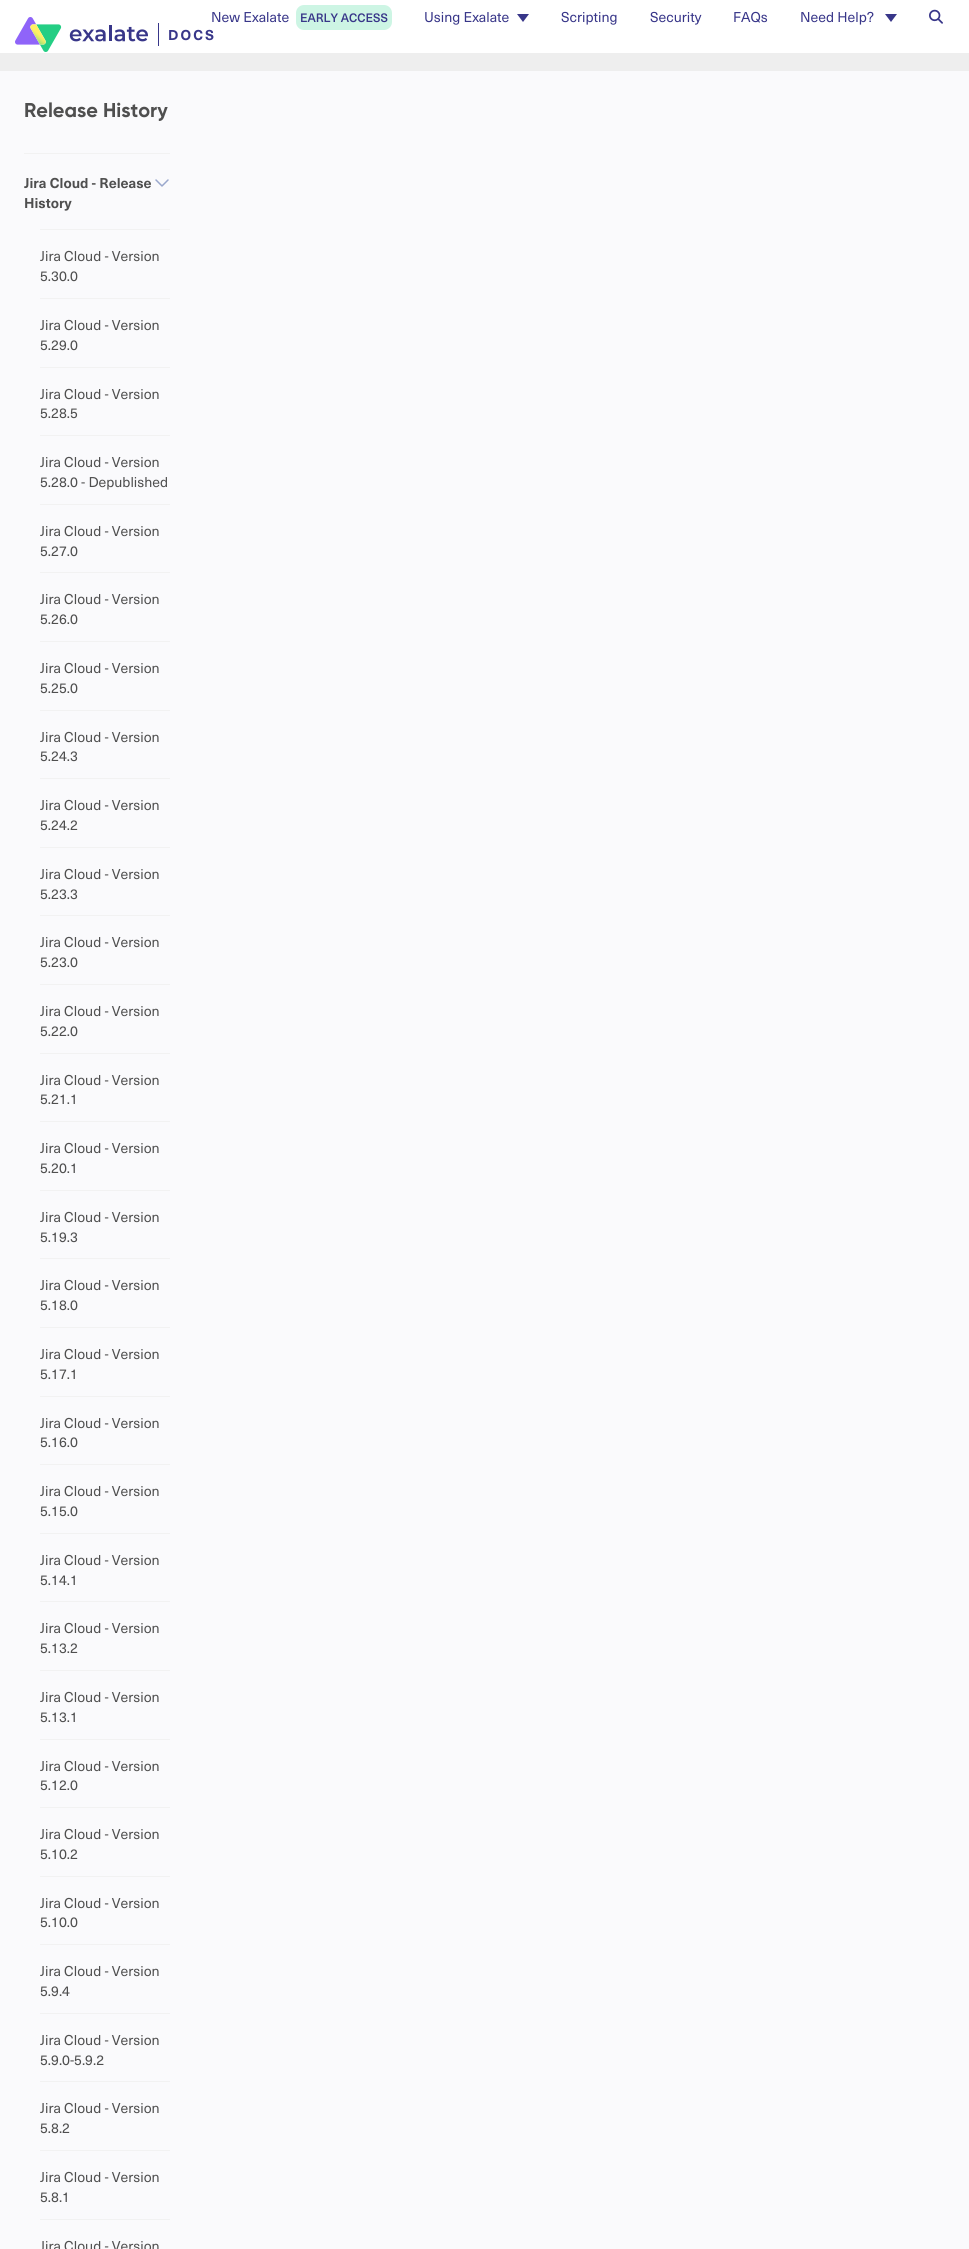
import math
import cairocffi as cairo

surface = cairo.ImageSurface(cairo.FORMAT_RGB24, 969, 2249)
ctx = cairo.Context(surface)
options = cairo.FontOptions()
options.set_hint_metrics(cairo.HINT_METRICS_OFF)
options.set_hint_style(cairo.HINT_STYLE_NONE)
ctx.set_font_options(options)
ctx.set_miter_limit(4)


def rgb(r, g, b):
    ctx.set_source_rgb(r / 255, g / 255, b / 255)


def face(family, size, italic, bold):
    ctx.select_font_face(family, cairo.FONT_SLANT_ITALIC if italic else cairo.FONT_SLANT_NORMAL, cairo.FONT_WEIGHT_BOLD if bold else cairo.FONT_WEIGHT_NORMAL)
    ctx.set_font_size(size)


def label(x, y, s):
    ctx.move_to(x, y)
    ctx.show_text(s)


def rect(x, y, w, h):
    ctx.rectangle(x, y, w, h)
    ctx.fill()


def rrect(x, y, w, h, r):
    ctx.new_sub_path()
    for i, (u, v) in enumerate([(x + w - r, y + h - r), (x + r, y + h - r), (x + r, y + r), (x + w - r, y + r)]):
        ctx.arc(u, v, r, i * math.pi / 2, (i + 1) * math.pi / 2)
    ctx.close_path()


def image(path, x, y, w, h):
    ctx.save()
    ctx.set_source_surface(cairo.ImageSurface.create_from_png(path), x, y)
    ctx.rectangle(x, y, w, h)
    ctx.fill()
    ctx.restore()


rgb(238, 238, 238)
ctx.paint()
rgb(255, 255, 255)
rect(0, 0, 969, 53)
image('image0.png', 15, 17, 199, 35)
face('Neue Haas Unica', 14, 0, 0)
rgb(56, 54, 137)
label(211, 22, 'New Exalate')
rgb(205, 245, 228)
rrect(296, 5, 96, 25, 8)
ctx.fill()
face('Neue Haas Unica Medium', 12, 0, 0)
rgb(56, 54, 137)
label(300, 22, 'EARLY ACCESS')
face('Neue Haas Unica', 14, 0, 0)
label(424, 22, 'Using Exalate')
ctx.new_path()
ctx.move_to(517, 14)
ctx.line_to(529, 14)
ctx.line_to(523, 22)
ctx.close_path()
ctx.fill()
label(561, 22, 'Scripting')
label(650, 22, 'Security')
label(733, 22, 'FAQs')
label(800, 22, 'Need Help?')
ctx.new_path()
ctx.move_to(885, 14)
ctx.line_to(897, 14)
ctx.line_to(891, 22)
ctx.close_path()
ctx.fill()
image('image1.png', 929, 9, 14, 15)
rgb(250, 250, 252)
rect(0, 71, 969, 2178)
face('Gilroy', 20, 0, 1)
rgb(79, 79, 79)
label(24, 117, 'Release History')
rgb(242, 242, 242)
rect(24, 153, 146, 1)
face('Neue Haas Unica', 14, 0, 1)
rgb(79, 79, 79)
label(24, 188, 'Jira Cloud - Release')
label(24, 208, 'History')
image('image2.png', 155, 179, 14, 8)
rgb(242, 242, 242)
rect(40, 229, 130, 1)
face('Neue Haas Unica', 14, 0, 0)
rgb(79, 79, 79)
label(40, 261, 'Jira Cloud - Version')
label(40, 281, '5.30.0')
rgb(242, 242, 242)
rect(40, 298, 130, 1)
rgb(79, 79, 79)
label(40, 330, 'Jira Cloud - Version')
label(40, 350, '5.29.0')
rgb(242, 242, 242)
rect(40, 367, 130, 1)
rgb(79, 79, 79)
label(40, 399, 'Jira Cloud - Version')
label(40, 418, '5.28.5')
rgb(242, 242, 242)
rect(40, 435, 130, 1)
rgb(79, 79, 79)
label(40, 467, 'Jira Cloud - Version')
label(40, 487, '5.28.0 - Depublished')
rgb(242, 242, 242)
rect(40, 504, 130, 1)
rgb(79, 79, 79)
label(40, 536, 'Jira Cloud - Version')
label(40, 556, '5.27.0')
rgb(242, 242, 242)
rect(40, 572, 130, 1)
rgb(79, 79, 79)
label(40, 604, 'Jira Cloud - Version')
label(40, 624, '5.26.0')
rgb(242, 242, 242)
rect(40, 641, 130, 1)
rgb(79, 79, 79)
label(40, 673, 'Jira Cloud - Version')
label(40, 693, '5.25.0')
rgb(242, 242, 242)
rect(40, 710, 130, 1)
rgb(79, 79, 79)
label(40, 742, 'Jira Cloud - Version')
label(40, 761, '5.24.3')
rgb(242, 242, 242)
rect(40, 778, 130, 1)
rgb(79, 79, 79)
label(40, 810, 'Jira Cloud - Version')
label(40, 830, '5.24.2')
rgb(242, 242, 242)
rect(40, 847, 130, 1)
rgb(79, 79, 79)
label(40, 879, 'Jira Cloud - Version')
label(40, 899, '5.23.3')
rgb(242, 242, 242)
rect(40, 915, 130, 1)
rgb(79, 79, 79)
label(40, 947, 'Jira Cloud - Version')
label(40, 967, '5.23.0')
rgb(242, 242, 242)
rect(40, 984, 130, 1)
rgb(79, 79, 79)
label(40, 1016, 'Jira Cloud - Version')
label(40, 1036, '5.22.0')
rgb(242, 242, 242)
rect(40, 1053, 130, 1)
rgb(79, 79, 79)
label(40, 1085, 'Jira Cloud - Version')
label(40, 1104, '5.21.1')
rgb(242, 242, 242)
rect(40, 1121, 130, 1)
rgb(79, 79, 79)
label(40, 1153, 'Jira Cloud - Version')
label(40, 1173, '5.20.1')
rgb(242, 242, 242)
rect(40, 1190, 130, 1)
rgb(79, 79, 79)
label(40, 1222, 'Jira Cloud - Version')
label(40, 1242, '5.19.3')
rgb(242, 242, 242)
rect(40, 1258, 130, 1)
rgb(79, 79, 79)
label(40, 1290, 'Jira Cloud - Version')
label(40, 1310, '5.18.0')
rgb(242, 242, 242)
rect(40, 1327, 130, 1)
rgb(79, 79, 79)
label(40, 1359, 'Jira Cloud - Version')
label(40, 1379, '5.17.1')
rgb(242, 242, 242)
rect(40, 1396, 130, 1)
rgb(79, 79, 79)
label(40, 1428, 'Jira Cloud - Version')
label(40, 1447, '5.16.0')
rgb(242, 242, 242)
rect(40, 1464, 130, 1)
rgb(79, 79, 79)
label(40, 1496, 'Jira Cloud - Version')
label(40, 1516, '5.15.0')
rgb(242, 242, 242)
rect(40, 1533, 130, 1)
rgb(79, 79, 79)
label(40, 1565, 'Jira Cloud - Version')
label(40, 1585, '5.14.1')
rgb(242, 242, 242)
rect(40, 1601, 130, 1)
rgb(79, 79, 79)
label(40, 1633, 'Jira Cloud - Version')
label(40, 1653, '5.13.2')
rgb(242, 242, 242)
rect(40, 1670, 130, 1)
rgb(79, 79, 79)
label(40, 1702, 'Jira Cloud - Version')
label(40, 1722, '5.13.1')
rgb(242, 242, 242)
rect(40, 1739, 130, 1)
rgb(79, 79, 79)
label(40, 1771, 'Jira Cloud - Version')
label(40, 1790, '5.12.0')
rgb(242, 242, 242)
rect(40, 1807, 130, 1)
rgb(79, 79, 79)
label(40, 1839, 'Jira Cloud - Version')
label(40, 1859, '5.10.2')
rgb(242, 242, 242)
rect(40, 1876, 130, 1)
rgb(79, 79, 79)
label(40, 1908, 'Jira Cloud - Version')
label(40, 1927, '5.10.0')
rgb(242, 242, 242)
rect(40, 1944, 130, 1)
rgb(79, 79, 79)
label(40, 1976, 'Jira Cloud - Version')
label(40, 1996, '5.9.4')
rgb(242, 242, 242)
rect(40, 2013, 130, 1)
rgb(79, 79, 79)
label(40, 2045, 'Jira Cloud - Version')
label(40, 2065, '5.9.0-5.9.2')
rgb(242, 242, 242)
rect(40, 2081, 130, 1)
rgb(79, 79, 79)
label(40, 2113, 'Jira Cloud - Version')
label(40, 2133, '5.8.2')
rgb(242, 242, 242)
rect(40, 2150, 130, 1)
rgb(79, 79, 79)
label(40, 2182, 'Jira Cloud - Version')
label(40, 2202, '5.8.1')
rgb(242, 242, 242)
rect(40, 2219, 130, 1)
rgb(79, 79, 79)
label(40, 2251, 'Jira Cloud - Version')
surface.write_to_png('render.png')
